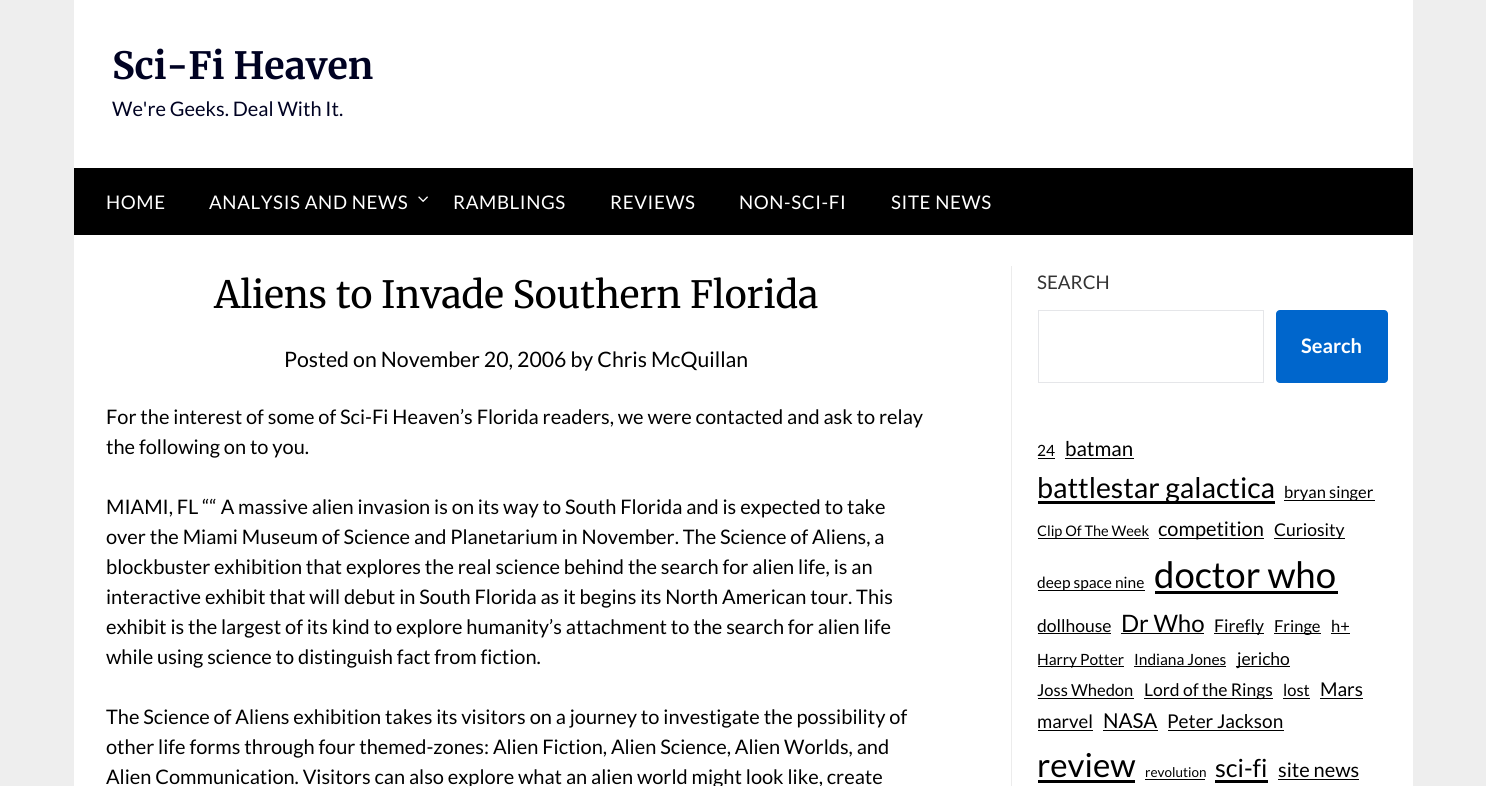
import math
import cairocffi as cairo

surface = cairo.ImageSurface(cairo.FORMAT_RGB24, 1486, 786)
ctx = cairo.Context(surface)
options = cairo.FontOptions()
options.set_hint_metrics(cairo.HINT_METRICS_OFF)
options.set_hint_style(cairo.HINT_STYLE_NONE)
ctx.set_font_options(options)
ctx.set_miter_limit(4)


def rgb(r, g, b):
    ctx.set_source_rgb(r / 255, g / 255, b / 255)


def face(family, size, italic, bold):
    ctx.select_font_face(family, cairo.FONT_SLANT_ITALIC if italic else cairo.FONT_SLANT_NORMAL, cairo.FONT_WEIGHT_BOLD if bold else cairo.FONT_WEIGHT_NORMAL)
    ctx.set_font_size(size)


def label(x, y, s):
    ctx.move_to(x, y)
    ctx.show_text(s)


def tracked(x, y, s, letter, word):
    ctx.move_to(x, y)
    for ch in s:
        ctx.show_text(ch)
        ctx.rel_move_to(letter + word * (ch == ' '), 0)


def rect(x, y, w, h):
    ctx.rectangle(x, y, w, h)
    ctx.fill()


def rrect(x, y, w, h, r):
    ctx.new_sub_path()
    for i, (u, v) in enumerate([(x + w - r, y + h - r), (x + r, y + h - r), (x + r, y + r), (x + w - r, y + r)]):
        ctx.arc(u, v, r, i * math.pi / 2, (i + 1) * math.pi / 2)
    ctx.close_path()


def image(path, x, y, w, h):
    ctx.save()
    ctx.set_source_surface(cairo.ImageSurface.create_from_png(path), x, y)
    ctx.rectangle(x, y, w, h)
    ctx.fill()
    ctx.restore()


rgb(238, 238, 238)
ctx.paint()
rgb(255, 255, 255)
rect(74, 0, 1339, 168)
face('Merriweather', 37.5, 0, 1)
rgb(0, 2, 34)
label(112, 79, 'Sci-Fi Heaven')
face('Lato', 20, 0, 0)
label(112, 116, 'We\'re Geeks. Deal With It.')
rgb(0, 0, 0)
rect(74, 168, 1339, 67)
face('Lato', 18.75, 0, 0)
rgb(255, 255, 255)
tracked(106, 209, 'HOME', 0.6, 0)
tracked(209, 209, 'ANALYSIS AND NEWS', 0.6, 0)
image('image0.png', 418, 196, 10, 6)
tracked(453, 209, 'RAMBLINGS', 0.6, 0)
tracked(610, 209, 'REVIEWS', 0.6, 0)
tracked(739, 209, 'NON-SCI-FI', 0.6, 0)
tracked(891, 209, 'SITE NEWS', 0.6, 0)
rect(74, 235, 1339, 551)
face('Merriweather', 37.5, 0, 0)
rgb(0, 0, 0)
label(214, 308, 'Aliens to Invade Southern Florida')
face('Lato', 21.25, 0, 0)
label(284, 367, 'Posted on November 20, 2006 by Chris McQuillan')
face('Lato', 20, 0, 0)
label(106, 424, 'For the interest of some of Sci-Fi Heaven’s Florida readers, we were contacted and ask to relay')
label(106, 454, 'the following on to you.')
label(106, 514, 'MIAMI, FL ““ A massive alien invasion is on its way to South Florida and is expected to take')
label(106, 544, 'over the Miami Museum of Science and Planetarium in November. The Science of Aliens, a')
label(106, 574, 'blockbuster exhibition that explores the real science behind the search for alien life, is an')
label(106, 604, 'interactive exhibit that will debut in South Florida as it begins its North American tour. This')
label(106, 634, 'exhibit is the largest of its kind to explore humanity’s attachment to the search for alien life')
label(106, 664, 'while using science to distinguish fact from fiction.')
label(106, 724, 'The Science of Aliens exhibition takes its visitors on a journey to investigate the possibility of')
label(106, 754, 'other life forms through four themed-zones: Alien Fiction, Alien Science, Alien Worlds, and')
label(106, 784, 'Alien Communication. Visitors can also explore what an alien world might look like, create')
rgb(236, 236, 236)
rect(1011, 266, 1, 520)
face('Lato', 18.75, 0, 0)
rgb(51, 51, 51)
label(1037, 289, 'SEARCH')
ctx.rectangle(1038.5, 310.5, 225, 72)
rgb(229, 230, 233)
ctx.set_line_width(1)
ctx.stroke()
rgb(0, 102, 204)
rrect(1276, 310, 112, 73, 4)
ctx.fill()
face('Lato', 20, 0, 1)
rgb(255, 255, 255)
label(1301, 353, 'Search')
face('Lato', 15.5, 0, 0)
rgb(0, 0, 0)
label(1037, 456, '24')
rect(1038, 458, 17, 1)
face('Lato', 20.5, 0, 0)
label(1065, 456, 'batman')
rect(1065, 458, 69, 1)
rect(1038, 501, 237, 3)
face('Lato', 28.5, 0, 0)
label(1037, 498, 'battlestar galactica')
rect(1284, 500, 91, 1)
face('Lato', 16.5, 0, 0)
label(1284, 498, 'bryan singer')
rect(1038, 538, 111, 1)
face('Lato', 14.5, 0, 0)
label(1037, 536, 'Clip Of The Week')
rect(1159, 538, 105, 1)
face('Lato', 20, 0, 0)
label(1158, 536, 'competition')
rect(1274, 538, 71, 1)
face('Lato', 17.5, 0, 0)
label(1274, 536, 'Curiosity')
rect(1038, 590, 107, 1)
face('Lato', 15.5, 0, 0)
label(1037, 588, 'deep space nine')
face('Lato', 36.5, 0, 0)
label(1154, 588, 'doctor who')
rect(1155, 591, 183, 3)
face('Lato', 17.5, 0, 0)
label(1037, 632, 'dollhouse')
rect(1038, 633, 73, 1)
face('Lato', 24, 0, 0)
label(1121, 632, 'Dr Who')
rect(1121, 633, 83, 1)
rect(1214, 633, 50, 1)
face('Lato', 17.5, 0, 0)
label(1214, 632, 'Firefly')
rect(1274, 633, 47, 1)
face('Lato', 16.5, 0, 0)
label(1274, 632, 'Fringe')
label(1331, 632, 'h+')
rect(1331, 633, 19, 1)
rect(1038, 666, 86, 1)
face('Lato', 15.5, 0, 0)
label(1037, 665, 'Harry Potter')
label(1134, 665, 'Indiana Jones')
rect(1134, 666, 92, 1)
rect(1236, 666, 54, 1)
face('Lato', 17.5, 0, 0)
label(1237, 665, 'jericho')
face('Lato', 16.5, 0, 0)
label(1037, 696, 'Joss Whedon')
rect(1038, 698, 96, 1)
rect(1144, 698, 129, 1)
face('Lato', 17.5, 0, 0)
label(1144, 696, 'Lord of the Rings')
face('Lato', 16.5, 0, 0)
label(1283, 696, 'lost')
rect(1283, 698, 27, 1)
face('Lato', 19, 0, 0)
label(1320, 696, 'Mars')
rect(1320, 698, 43, 1)
face('Lato', 18.5, 0, 0)
label(1037, 728, 'marvel')
rect(1038, 730, 55, 1)
face('Lato', 20.5, 0, 0)
label(1103, 728, 'NASA')
rect(1103, 730, 55, 1)
face('Lato', 19, 0, 0)
label(1167, 728, 'Peter Jackson')
rect(1168, 730, 116, 1)
face('Lato', 33, 0, 0)
label(1037, 777, 'review')
rect(1038, 780, 97, 3)
face('Lato', 13.5, 0, 0)
label(1145, 777, 'revolution')
rect(1145, 779, 60, 1)
face('Lato', 25, 0, 0)
label(1215, 777, 'sci-fi')
rect(1215, 780, 53, 3)
face('Lato', 20, 0, 0)
label(1278, 777, 'site news')
rect(1278, 779, 81, 1)
surface.write_to_png('render.png')
